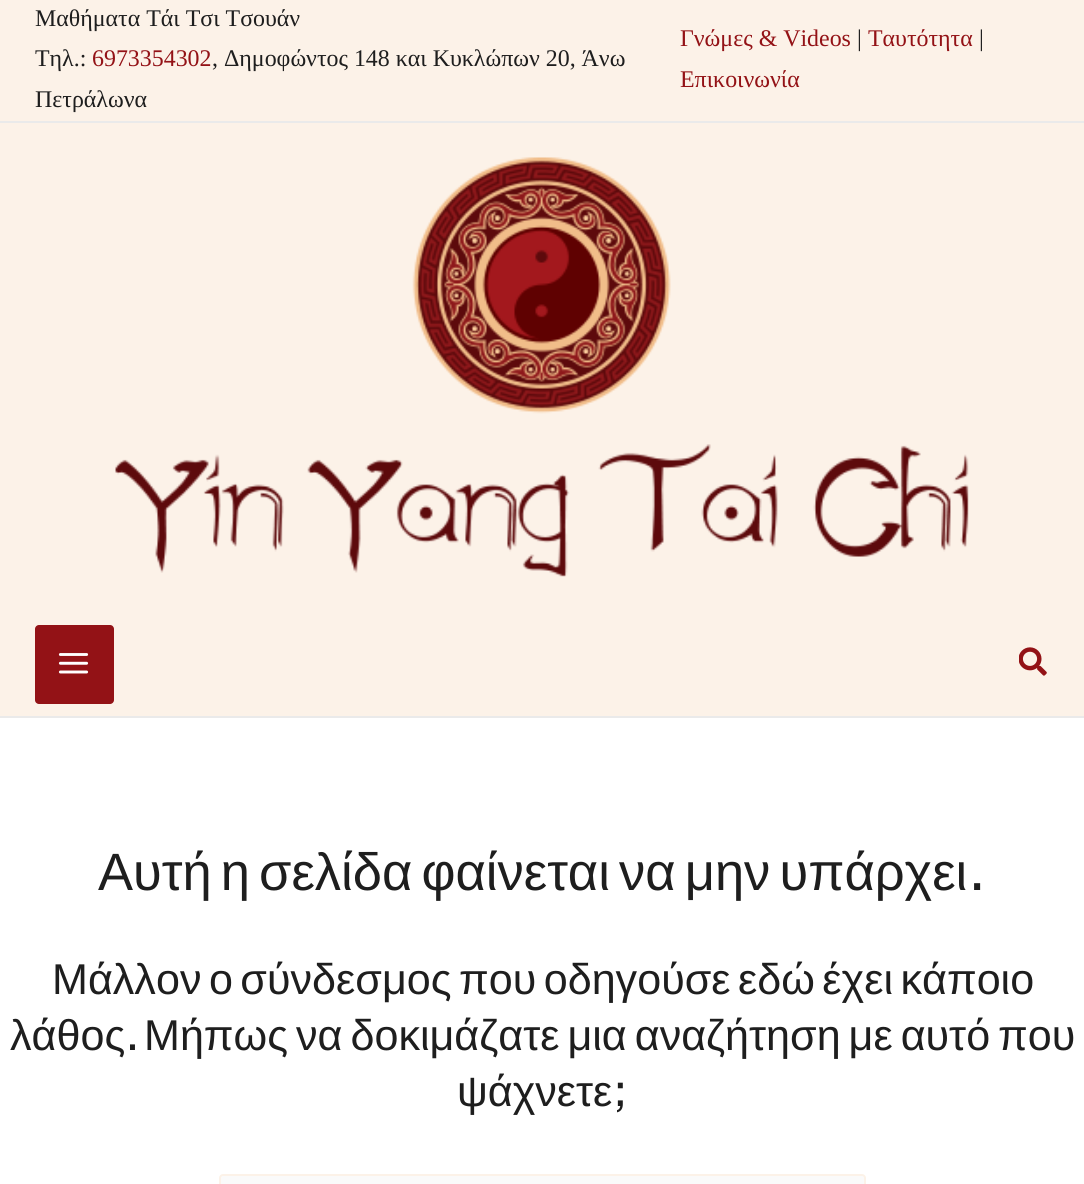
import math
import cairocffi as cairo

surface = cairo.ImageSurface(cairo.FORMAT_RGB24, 1084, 1184)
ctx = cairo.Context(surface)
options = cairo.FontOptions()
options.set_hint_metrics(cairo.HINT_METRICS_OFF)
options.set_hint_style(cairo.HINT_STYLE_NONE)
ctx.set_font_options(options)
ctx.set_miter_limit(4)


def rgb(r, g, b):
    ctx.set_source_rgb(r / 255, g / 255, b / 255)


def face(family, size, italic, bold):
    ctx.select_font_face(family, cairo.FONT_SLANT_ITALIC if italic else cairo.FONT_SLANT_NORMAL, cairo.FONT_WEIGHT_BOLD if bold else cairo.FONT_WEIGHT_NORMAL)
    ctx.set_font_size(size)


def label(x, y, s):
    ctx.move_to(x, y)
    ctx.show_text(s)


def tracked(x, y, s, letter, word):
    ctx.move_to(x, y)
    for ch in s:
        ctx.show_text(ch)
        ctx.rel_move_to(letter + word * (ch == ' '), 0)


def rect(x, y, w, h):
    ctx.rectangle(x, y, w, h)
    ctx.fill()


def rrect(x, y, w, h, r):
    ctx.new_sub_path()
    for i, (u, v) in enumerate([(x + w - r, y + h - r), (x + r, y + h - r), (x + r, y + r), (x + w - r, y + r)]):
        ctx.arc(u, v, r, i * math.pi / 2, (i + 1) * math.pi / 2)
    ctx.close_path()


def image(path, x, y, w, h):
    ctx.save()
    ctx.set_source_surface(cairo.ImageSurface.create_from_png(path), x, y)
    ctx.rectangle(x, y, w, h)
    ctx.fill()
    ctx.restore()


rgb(255, 255, 255)
ctx.paint()
rgb(252, 242, 232)
rect(0, 0, 1084, 121)
rgb(234, 234, 234)
rect(0, 121, 1084, 2)
face('Liberation Serif', 23.9, 0, 0)
rgb(30, 30, 30)
label(35, 26, 'Μαθήματα Τάι Τσι Τσουάν')
label(35, 66, 'Τηλ.:')
rgb(147, 18, 22)
label(92, 66, '6973354302')
rgb(30, 30, 30)
label(212, 66, ', Δημοφώντος 148 και Κυκλώπων 20, Άνω')
label(35, 107, 'Πετράλωνα')
rgb(147, 18, 22)
label(680, 46, 'Γνώμες & Videos')
rgb(30, 30, 30)
label(857, 46, '|')
rgb(147, 18, 22)
label(868, 46, 'Ταυτότητα')
rgb(30, 30, 30)
label(979, 46, '|')
rgb(147, 18, 22)
label(680, 87, 'Επικοινωνία')
rgb(252, 242, 232)
rect(0, 123, 1084, 593)
rgb(234, 234, 234)
rect(0, 716, 1084, 2)
rgb(147, 18, 22)
rrect(35, 625, 79, 79, 4)
ctx.fill()
image('image0.png', 58, 653, 31, 21)
image('image1.png', 1019, 647, 28, 29)
image('image2.png', 115, 157, 854, 420)
face('Liberation Sans', 52.5, 0, 0)
rgb(30, 30, 30)
tracked(98, 890, 'Αυτή η σελίδα φαίνεται να μην υπάρχει', 0, -5.5)
face('Plus Jakarta Sans SemiBold', 52.5, 0, 0)
label(968, 890, '.')
face('Liberation Sans', 43.1, 0, 0)
tracked(52, 994, 'Μάλλον ο σύνδεσμος που οδηγούσε εδώ έχει κάποιο', 0, -4.5)
label(10, 1050, 'λάθος')
face('Plus Jakarta Sans SemiBold', 43.1, 0, 0)
label(125, 1050, '.')
face('Liberation Sans', 43.1, 0, 0)
tracked(144, 1050, 'Μήπως να δοκιμάζατε μια αναζήτηση με αυτό που', 0, -4)
label(457, 1106, 'ψάχνετε')
face('Plus Jakarta Sans SemiBold', 43.1, 0, 0)
label(612, 1106, ';')
rgb(250, 250, 250)
rrect(220, 1175, 645, 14, 3)
ctx.fill_preserve()
rgb(252, 242, 232)
ctx.stroke()
surface.write_to_png('render.png')
